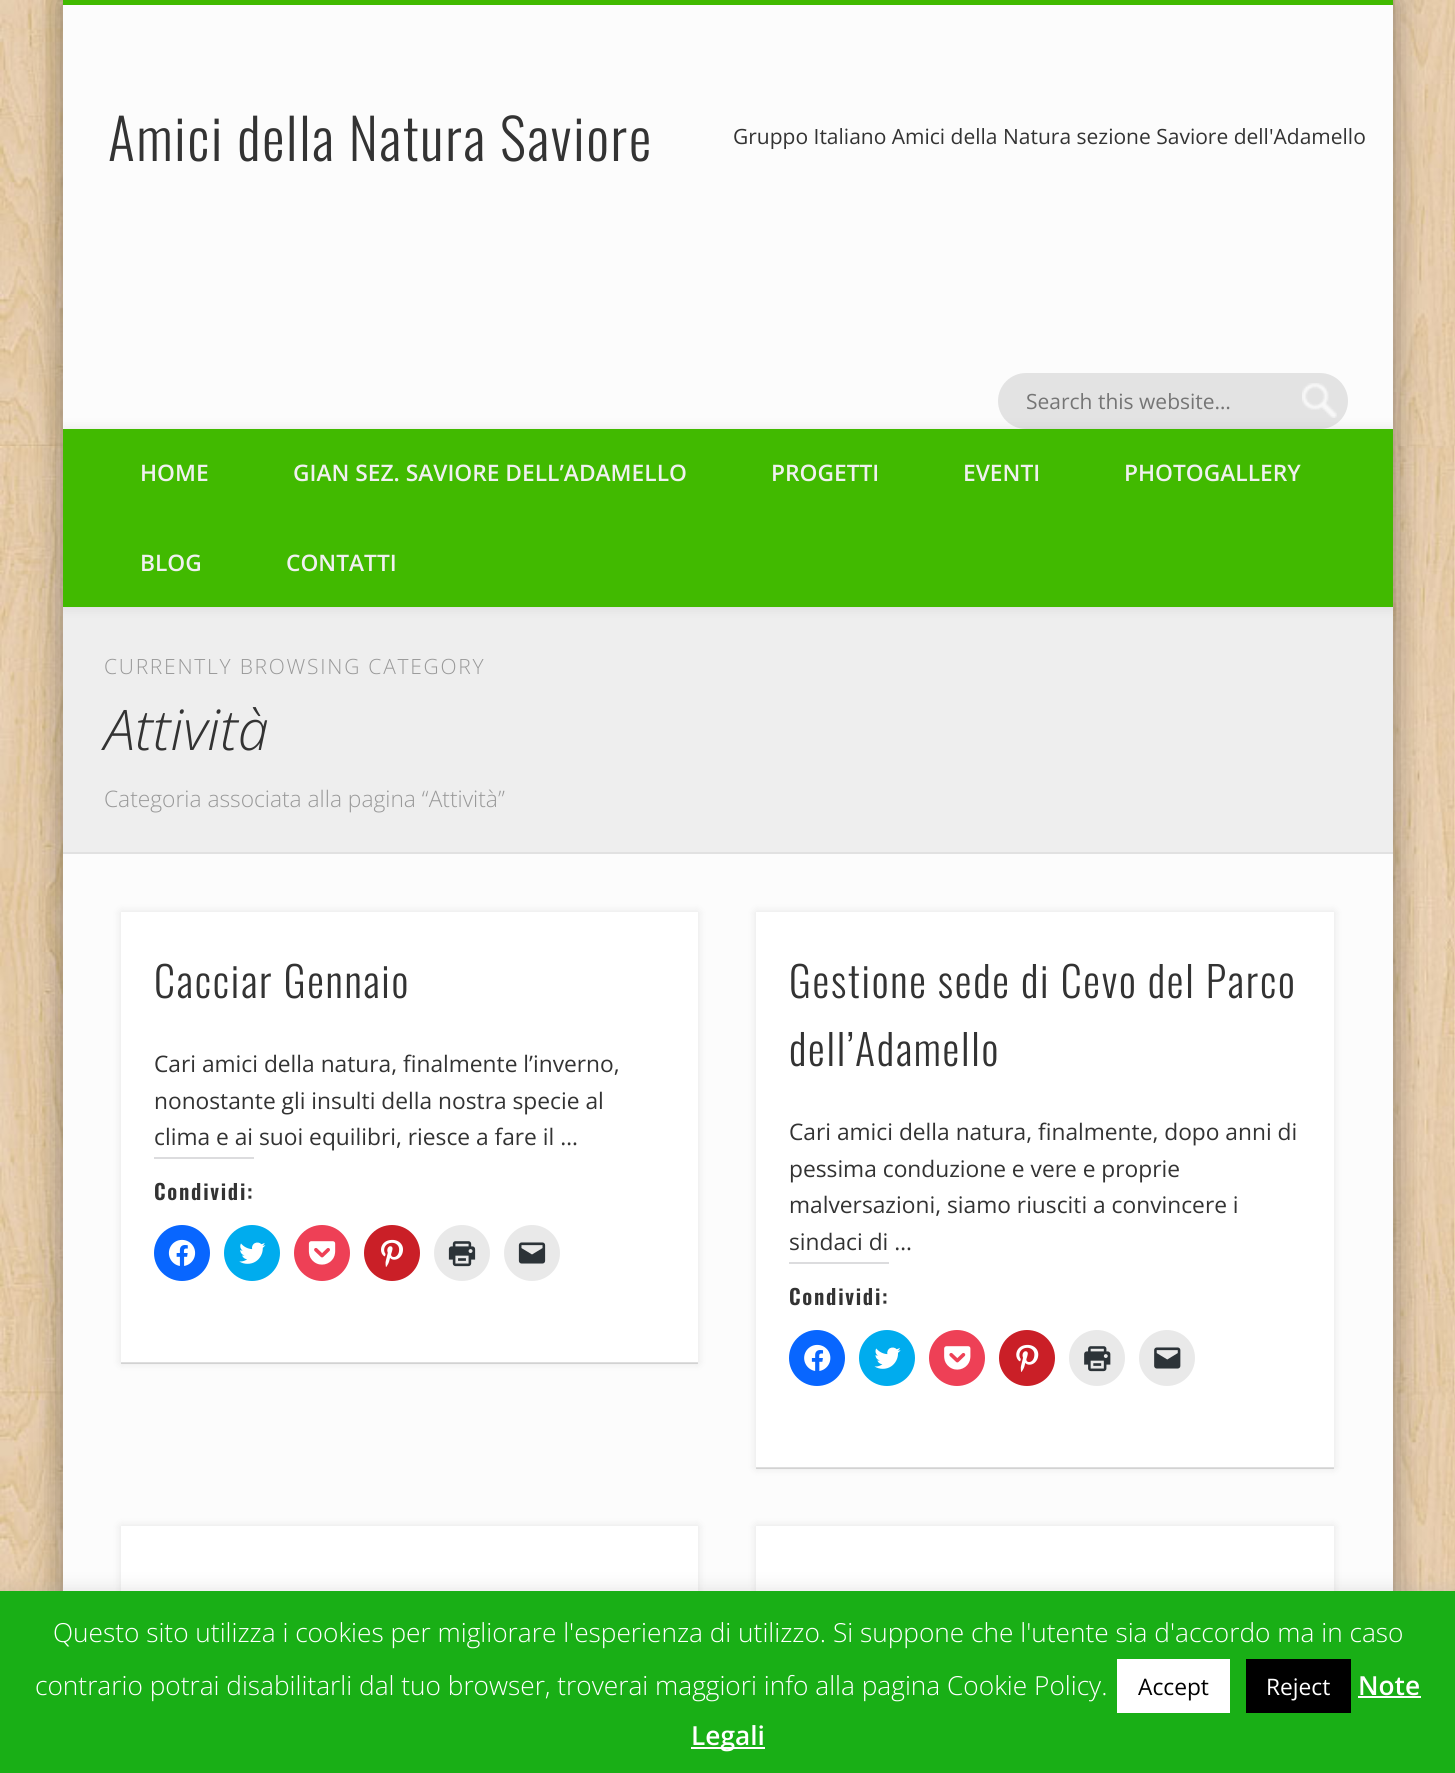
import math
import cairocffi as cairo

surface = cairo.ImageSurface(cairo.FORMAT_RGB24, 1455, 1773)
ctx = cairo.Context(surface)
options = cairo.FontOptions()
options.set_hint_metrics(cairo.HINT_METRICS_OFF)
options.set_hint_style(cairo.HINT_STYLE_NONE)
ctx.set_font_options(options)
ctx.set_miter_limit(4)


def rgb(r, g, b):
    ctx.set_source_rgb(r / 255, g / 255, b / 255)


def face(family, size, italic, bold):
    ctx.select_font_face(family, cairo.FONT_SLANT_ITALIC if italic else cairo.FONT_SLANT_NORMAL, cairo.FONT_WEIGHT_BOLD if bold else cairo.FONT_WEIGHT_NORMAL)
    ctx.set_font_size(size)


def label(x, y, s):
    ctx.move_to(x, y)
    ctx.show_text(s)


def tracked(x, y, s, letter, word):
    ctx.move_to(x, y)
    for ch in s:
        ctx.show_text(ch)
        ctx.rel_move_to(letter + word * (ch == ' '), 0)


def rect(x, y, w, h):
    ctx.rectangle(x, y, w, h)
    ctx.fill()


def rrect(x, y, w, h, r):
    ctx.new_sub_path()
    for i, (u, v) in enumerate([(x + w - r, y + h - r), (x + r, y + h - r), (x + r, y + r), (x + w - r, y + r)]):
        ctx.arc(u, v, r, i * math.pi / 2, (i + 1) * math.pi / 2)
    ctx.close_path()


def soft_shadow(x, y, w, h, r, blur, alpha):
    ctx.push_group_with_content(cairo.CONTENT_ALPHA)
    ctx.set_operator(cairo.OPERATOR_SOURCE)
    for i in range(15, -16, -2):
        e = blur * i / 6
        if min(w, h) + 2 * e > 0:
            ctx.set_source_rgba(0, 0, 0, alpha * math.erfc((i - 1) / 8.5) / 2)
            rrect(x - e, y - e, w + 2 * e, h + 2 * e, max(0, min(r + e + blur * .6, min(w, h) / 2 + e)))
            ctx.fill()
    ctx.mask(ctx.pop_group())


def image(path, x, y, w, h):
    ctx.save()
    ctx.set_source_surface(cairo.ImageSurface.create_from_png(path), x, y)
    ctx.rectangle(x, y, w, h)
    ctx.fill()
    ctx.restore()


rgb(255, 255, 255)
ctx.paint()
image('image0.png', 0, 0, 1455, 1591)
rgb(0, 0, 0)
soft_shadow(63, 0, 1330, 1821, 0, 16, 0.4)
rgb(252, 252, 252)
rect(63, 5, 1330, 1586)
rgb(65, 186, 0)
rect(63, 0, 1330, 5)
face('Oswald Light', 56, 0, 0)
rgb(51, 51, 51)
tracked(108, 161, 'Amici della Natura Saviore', 1.75, 0)
face('Open Sans', 21, 0, 0)
label(733, 144, 'Gruppo Italiano Amici della Natura sezione Saviore dell\'Adamello')
rgb(227, 227, 227)
rrect(998, 373, 350, 56, 28)
ctx.fill()
image('image1.png', 1302, 383, 35, 35)
rgb(117, 117, 117)
label(1026, 409, 'Search this website…')
rgb(238, 238, 238)
rect(63, 607, 1330, 245)
ctx.save()
ctx.rectangle(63, 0, 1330, 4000)
ctx.clip()
rgb(0, 0, 0)
soft_shadow(63, 429, 1330, 178, 0, 6, 0.1)
ctx.restore()
rgb(65, 186, 0)
rect(63, 429, 1330, 178)
face('Open Sans SemiBold', 22.75, 0, 0)
rgb(240, 240, 240)
label(140, 481, 'HOME')
label(293, 481, 'GIAN SEZ. SAVIORE DELL’ADAMELLO')
label(771, 481, 'PROGETTI')
label(963, 481, 'EVENTI')
label(1124, 481, 'PHOTOGALLERY')
label(140, 571, 'BLOG')
label(286, 571, 'CONTATTI')
rgb(225, 225, 225)
rect(63, 852, 1330, 2)
face('Open Sans Light', 21, 0, 0)
rgb(153, 153, 153)
tracked(104, 674, 'CURRENTLY BROWSING CATEGORY', 1.75, 0)
face('Open Sans Light', 56, 1, 0)
rgb(51, 51, 51)
label(104, 750, 'Attività')
face('Open Sans Light', 22.75, 0, 0)
rgb(153, 153, 153)
label(104, 807, 'Categoria associata alla pagina “Attività”')
rgb(0, 0, 0)
soft_shadow(121, 912, 577, 451, 0, 4.5, 0.1)
rgb(255, 255, 255)
rect(121, 912, 577, 451)
ctx.set_source_rgba(0, 0, 0, 0.13)
rect(121, 1362, 577, 2)
face('Oswald Light', 42, 0, 0)
rgb(51, 51, 51)
tracked(154, 998, 'Cacciar Gennaio', 1.75, 0)
face('Open Sans', 22.75, 0, 0)
label(154, 1072, 'Cari amici della natura, finalmente l’inverno,')
label(154, 1109, 'nonostante gli insulti della nostra specie al')
label(154, 1145, 'clima e ai suoi equilibri, riesce a fare il …')
rgb(220, 220, 222)
rect(154, 1157, 100, 2)
face('Oswald SemiBold', 21, 0, 0)
rgb(51, 51, 51)
tracked(154, 1200, 'Condividi:', 1.75, 0)
rgb(8, 102, 255)
ctx.new_path()
ctx.arc(182, 1253, 28, 0, 2 * math.pi)
ctx.fill()
image('image2.png', 168, 1239, 28, 27)
rgb(0, 172, 238)
ctx.arc(252, 1253, 28, 0, 2 * math.pi)
ctx.fill()
image('image3.png', 239, 1242, 27, 22)
rgb(238, 64, 86)
ctx.arc(322, 1253, 28, 0, 2 * math.pi)
ctx.fill()
image('image4.png', 308, 1241, 28, 24)
rgb(202, 31, 39)
ctx.arc(392, 1253, 28, 0, 2 * math.pi)
ctx.fill()
image('image5.png', 381, 1239, 22, 28)
rgb(233, 233, 233)
ctx.arc(462, 1253, 28, 0, 2 * math.pi)
ctx.fill()
image('image6.png', 448, 1241, 28, 26)
ctx.arc(532, 1253, 28, 0, 2 * math.pi)
ctx.fill()
image('image7.png', 518, 1242, 28, 22)
rgb(0, 0, 0)
soft_shadow(756, 912, 578, 556, 0, 4.5, 0.1)
rgb(255, 255, 255)
rect(756, 912, 578, 556)
ctx.set_source_rgba(0, 0, 0, 0.13)
rect(756, 1467, 578, 2)
face('Oswald Light', 42, 0, 0)
rgb(51, 51, 51)
tracked(789, 998, 'Gestione sede di Cevo del Parco', 1.75, 0)
tracked(789, 1066, 'dell’Adamello', 1.75, 0)
face('Open Sans', 22.75, 0, 0)
label(789, 1140, 'Cari amici della natura, finalmente, dopo anni di')
label(789, 1177, 'pessima conduzione e vere e proprie')
label(789, 1213, 'malversazioni, siamo riusciti a convincere i')
label(789, 1250, 'sindaci di …')
rgb(220, 220, 222)
rect(789, 1262, 100, 2)
face('Oswald SemiBold', 21, 0, 0)
rgb(51, 51, 51)
tracked(789, 1305, 'Condividi:', 1.75, 0)
rgb(8, 102, 255)
ctx.new_path()
ctx.arc(817, 1358, 28, 0, 2 * math.pi)
ctx.fill()
image('image8.png', 804, 1344, 27, 27)
rgb(0, 172, 238)
ctx.arc(887, 1358, 28, 0, 2 * math.pi)
ctx.fill()
image('image9.png', 874, 1347, 27, 22)
rgb(238, 64, 86)
ctx.arc(957, 1358, 28, 0, 2 * math.pi)
ctx.fill()
image('image10.png', 944, 1346, 27, 24)
rgb(202, 31, 39)
ctx.arc(1027, 1358, 28, 0, 2 * math.pi)
ctx.fill()
image('image11.png', 1016, 1344, 23, 28)
rgb(233, 233, 233)
ctx.arc(1097, 1358, 28, 0, 2 * math.pi)
ctx.fill()
image('image12.png', 1084, 1346, 27, 26)
ctx.arc(1167, 1358, 28, 0, 2 * math.pi)
ctx.fill()
image('image13.png', 1154, 1347, 27, 22)
rgb(0, 0, 0)
soft_shadow(121, 1526, 577, 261, 0, 4.5, 0.1)
rgb(255, 255, 255)
rect(121, 1526, 577, 65)
rgb(0, 0, 0)
soft_shadow(756, 1526, 578, 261, 0, 4.5, 0.1)
rgb(255, 255, 255)
rect(756, 1526, 578, 65)
rgb(172, 171, 171)
soft_shadow(0, 1589, 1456, 184, 0, 9, 0.3)
rgb(25, 175, 22)
rect(0, 1591, 1455, 182)
face('Open Sans Light', 26.25, 0, 0)
rgb(255, 255, 255)
label(53, 1642, 'Questo sito utilizza i cookies per migliorare l\'esperienza di utilizzo. Si suppone che l\'utente sia d\'accordo ma in caso')
label(35, 1695, 'contrario potrai disabilitarli dal tuo browser, troverai maggiori info alla pagina Cookie Policy.')
rect(1117, 1659, 113, 54)
face('Open Sans', 22.75, 0, 0)
rgb(0, 0, 0)
label(1138, 1695, 'Accept')
rect(1246, 1659, 105, 54)
rgb(255, 255, 255)
label(1266, 1695, 'Reject')
face('Open Sans SemiBold', 26.25, 0, 0)
label(1358, 1695, 'Note')
rect(1358, 1696, 63, 2)
rect(691, 1747, 74, 2)
label(691, 1745, 'Legali')
surface.write_to_png('render.png')
